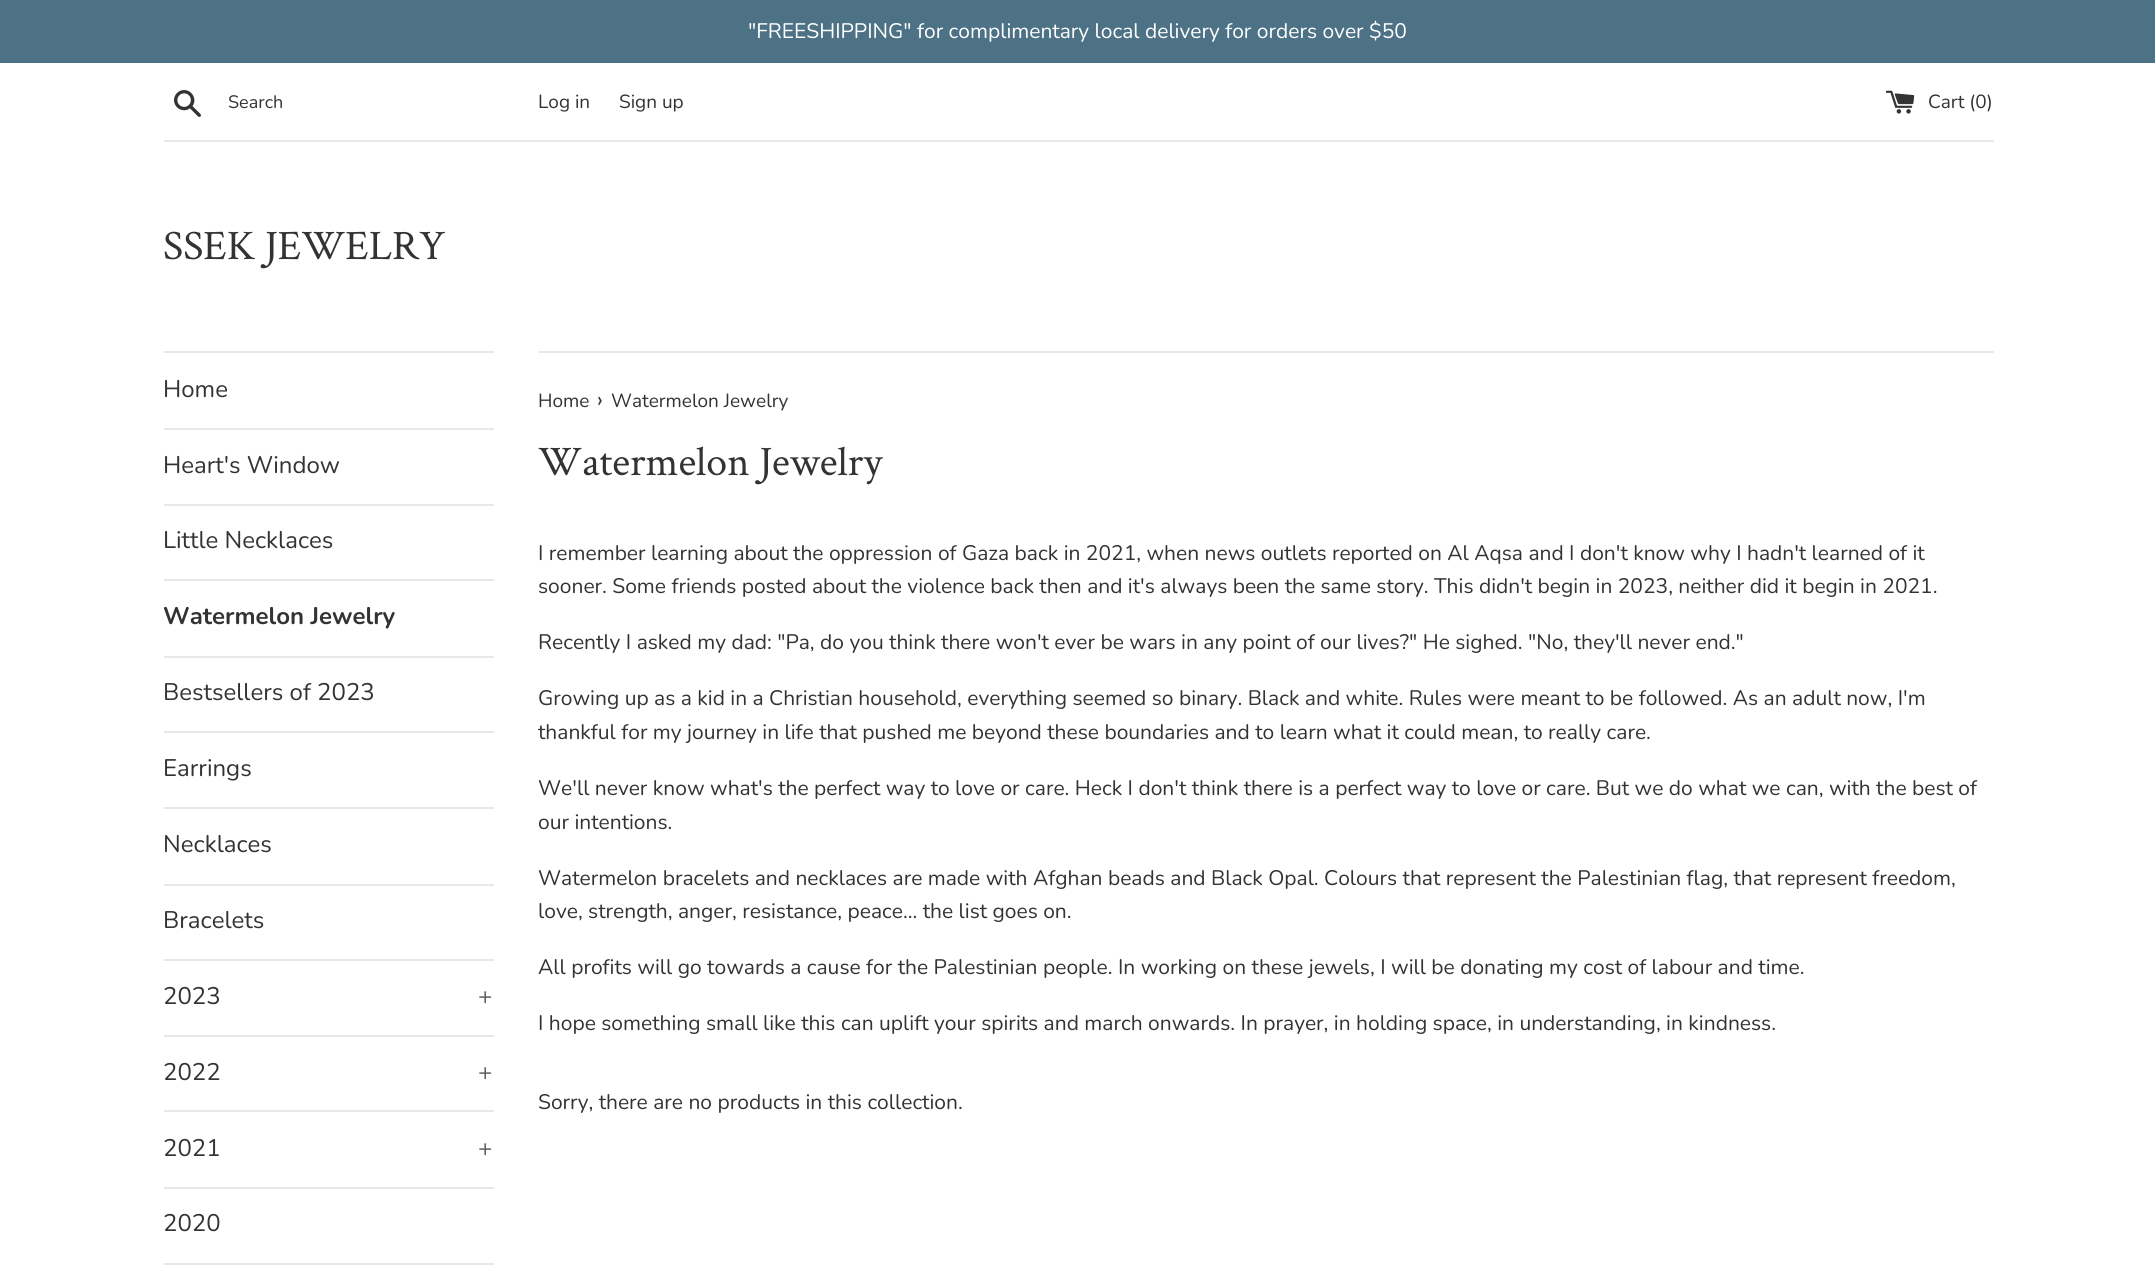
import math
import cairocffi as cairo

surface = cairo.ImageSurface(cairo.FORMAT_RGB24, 2155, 1277)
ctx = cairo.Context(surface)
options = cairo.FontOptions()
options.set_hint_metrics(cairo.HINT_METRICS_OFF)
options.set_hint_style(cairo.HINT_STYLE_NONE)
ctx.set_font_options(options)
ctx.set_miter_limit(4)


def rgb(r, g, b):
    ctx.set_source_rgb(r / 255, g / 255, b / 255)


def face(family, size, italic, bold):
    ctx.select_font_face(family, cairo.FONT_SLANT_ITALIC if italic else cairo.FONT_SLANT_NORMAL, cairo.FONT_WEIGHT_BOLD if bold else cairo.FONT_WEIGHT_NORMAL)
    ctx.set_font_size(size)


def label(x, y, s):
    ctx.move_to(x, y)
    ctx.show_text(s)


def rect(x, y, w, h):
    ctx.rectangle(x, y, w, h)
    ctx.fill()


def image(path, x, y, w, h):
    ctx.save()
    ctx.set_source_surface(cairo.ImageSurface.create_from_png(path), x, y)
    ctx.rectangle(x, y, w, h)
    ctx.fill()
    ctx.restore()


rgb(255, 255, 255)
ctx.paint()
rgb(77, 113, 133)
rect(0, 0, 2155, 63)
face('Nunito', 21, 0, 0)
rgb(255, 255, 255)
label(748, 38, '"FREESHIPPING" for complimentary local delivery for orders over $50')
image('image0.png', 174, 90, 27, 27)
face('Nunito', 18, 0, 0)
rgb(51, 51, 51)
label(228, 108, 'Search')
face('Nunito', 19, 0, 0)
label(538, 108, 'Log in')
label(619, 108, 'Sign up')
image('image1.png', 1886, 90, 29, 24)
label(1928, 108, 'Cart (0)')
rgb(232, 232, 232)
rect(164, 140, 1830, 2)
face('Crimson Text', 42, 0, 0)
rgb(51, 51, 51)
label(163, 259, 'SSEK JEWELRY')
rgb(232, 232, 232)
rect(164, 351, 330, 2)
rect(164, 428, 330, 2)
face('Nunito', 24, 0, 0)
rgb(51, 51, 51)
label(163, 397, 'Home')
rgb(232, 232, 232)
rect(164, 504, 330, 2)
rgb(51, 51, 51)
label(163, 473, 'Heart\'s Window')
rgb(232, 232, 232)
rect(164, 579, 330, 2)
rgb(51, 51, 51)
label(163, 548, 'Little Necklaces')
rgb(232, 232, 232)
rect(164, 656, 330, 2)
face('Nunito', 24, 0, 1)
rgb(51, 51, 51)
label(163, 624, 'Watermelon Jewelry')
rgb(232, 232, 232)
rect(164, 731, 330, 2)
face('Nunito', 24, 0, 0)
rgb(51, 51, 51)
label(163, 700, 'Bestsellers of 2023')
rgb(232, 232, 232)
rect(164, 807, 330, 2)
rgb(51, 51, 51)
label(163, 776, 'Earrings')
rgb(232, 232, 232)
rect(164, 884, 330, 2)
rgb(51, 51, 51)
label(163, 852, 'Necklaces')
rgb(232, 232, 232)
rect(164, 959, 330, 2)
rgb(51, 51, 51)
label(163, 928, 'Bracelets')
rgb(232, 232, 232)
rect(164, 1035, 330, 2)
rgb(51, 51, 51)
label(163, 1004, '2023')
rgb(92, 92, 92)
label(478, 1004, '+')
rgb(232, 232, 232)
rect(164, 1110, 330, 2)
rgb(51, 51, 51)
label(163, 1080, '2022')
rgb(92, 92, 92)
label(478, 1080, '+')
rgb(232, 232, 232)
rect(164, 1187, 330, 2)
rgb(51, 51, 51)
label(163, 1156, '2021')
rgb(92, 92, 92)
label(478, 1156, '+')
rgb(232, 232, 232)
rect(164, 1263, 330, 2)
rgb(51, 51, 51)
label(163, 1231, '2020')
rgb(232, 232, 232)
rect(539, 351, 1455, 2)
face('Nunito', 19, 0, 0)
rgb(51, 51, 51)
label(538, 407, 'Home')
face('Nunito', 23, 0, 0)
label(597, 407, '›')
face('Nunito', 19, 0, 0)
label(611, 407, 'Watermelon Jewelry')
face('Crimson Text', 42, 0, 0)
label(538, 475, 'Watermelon Jewelry')
face('Nunito', 21, 0, 0)
label(538, 560, 'I remember learning about the oppression of Gaza back in 2021, when news outlets reported on Al Aqsa and I don\'t know why I hadn\'t learned of it')
label(538, 593, 'sooner. Some friends posted about the violence back then and it\'s always been the same story. This didn\'t begin in 2023, neither did it begin in 2021.')
label(538, 649, 'Recently I asked my dad: "Pa, do you think there won\'t ever be wars in any point of our lives?" He sighed. "No, they\'ll never end."')
label(538, 705, 'Growing up as a kid in a Christian household, everything seemed so binary. Black and white. Rules were meant to be followed. As an adult now, I\'m')
label(538, 739, 'thankful for my journey in life that pushed me beyond these boundaries and to learn what it could mean, to really care.')
label(538, 795, 'We\'ll never know what\'s the perfect way to love or care. Heck I don\'t think there is a perfect way to love or care. But we do what we can, with the best of')
label(538, 829, 'our intentions.')
label(538, 885, 'Watermelon bracelets and necklaces are made with Afghan beads and Black Opal. Colours that represent the Palestinian flag, that represent freedom,')
label(538, 918, 'love, strength, anger, resistance, peace... the list goes on.')
label(538, 974, 'All profits will go towards a cause for the Palestinian people. In working on these jewels, I will be donating my cost of labour and time.')
label(538, 1030, 'I hope something small like this can uplift your spirits and march onwards. In prayer, in holding space, in understanding, in kindness.')
label(538, 1109, 'Sorry, there are no products in this collection.')
surface.write_to_png('render.png')
